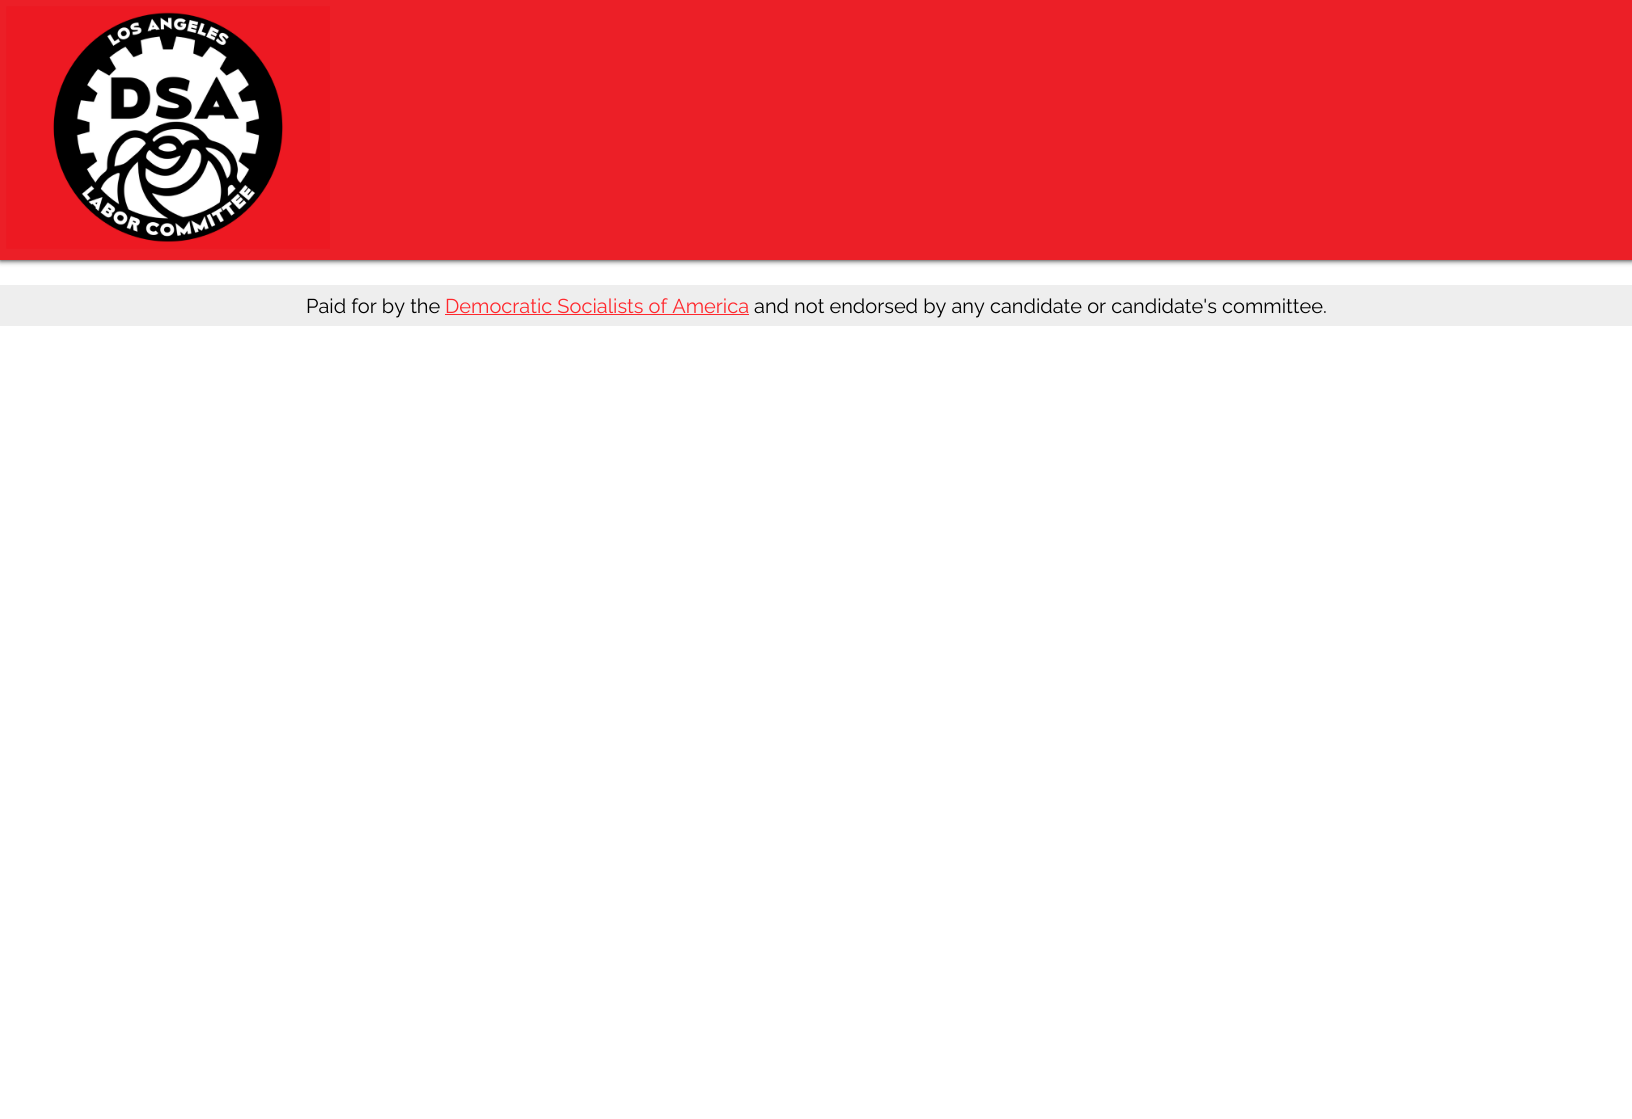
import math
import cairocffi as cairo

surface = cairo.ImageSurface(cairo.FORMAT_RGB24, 1632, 1119)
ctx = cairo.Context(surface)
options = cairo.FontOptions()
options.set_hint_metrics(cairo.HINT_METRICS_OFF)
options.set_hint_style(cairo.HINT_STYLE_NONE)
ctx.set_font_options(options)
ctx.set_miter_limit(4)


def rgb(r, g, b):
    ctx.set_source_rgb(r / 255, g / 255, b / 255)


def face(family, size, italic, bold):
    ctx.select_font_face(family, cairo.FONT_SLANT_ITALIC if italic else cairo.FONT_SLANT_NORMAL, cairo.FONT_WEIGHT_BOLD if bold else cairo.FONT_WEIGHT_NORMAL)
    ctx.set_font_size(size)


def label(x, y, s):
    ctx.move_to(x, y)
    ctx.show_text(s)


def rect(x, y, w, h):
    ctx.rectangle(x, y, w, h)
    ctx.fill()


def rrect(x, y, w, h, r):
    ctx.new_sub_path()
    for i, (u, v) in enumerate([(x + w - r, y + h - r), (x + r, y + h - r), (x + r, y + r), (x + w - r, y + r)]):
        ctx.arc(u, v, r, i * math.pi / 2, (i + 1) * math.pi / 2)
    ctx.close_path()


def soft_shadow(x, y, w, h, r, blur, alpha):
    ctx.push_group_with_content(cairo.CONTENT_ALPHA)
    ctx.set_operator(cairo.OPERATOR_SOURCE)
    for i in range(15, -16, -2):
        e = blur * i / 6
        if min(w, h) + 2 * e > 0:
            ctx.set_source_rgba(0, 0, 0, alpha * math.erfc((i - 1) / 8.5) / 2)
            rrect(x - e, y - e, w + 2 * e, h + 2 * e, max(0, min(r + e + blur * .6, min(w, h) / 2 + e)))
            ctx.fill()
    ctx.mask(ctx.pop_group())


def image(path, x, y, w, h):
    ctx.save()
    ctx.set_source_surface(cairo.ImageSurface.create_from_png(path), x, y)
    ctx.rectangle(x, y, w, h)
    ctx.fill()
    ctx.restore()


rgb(255, 255, 255)
ctx.paint()
rgb(0, 0, 0)
soft_shadow(0, 0, 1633, 260, 0, 3, 1)
rgb(236, 31, 39)
rect(0, 0, 1632, 260)
image('image0.png', 6, 6, 324, 243)
rgb(238, 238, 238)
rect(0, 285, 1632, 41)
face('Raleway', 20, 0, 0)
rgb(0, 0, 0)
label(306, 313, 'Paid for by the')
rgb(255, 40, 45)
label(445, 313, 'Democratic Socialists of America')
rect(445, 314, 304, 1)
rgb(0, 0, 0)
label(754, 313, 'and not endorsed by any candidate or candidate\'s committee.')
surface.write_to_png('render.png')
